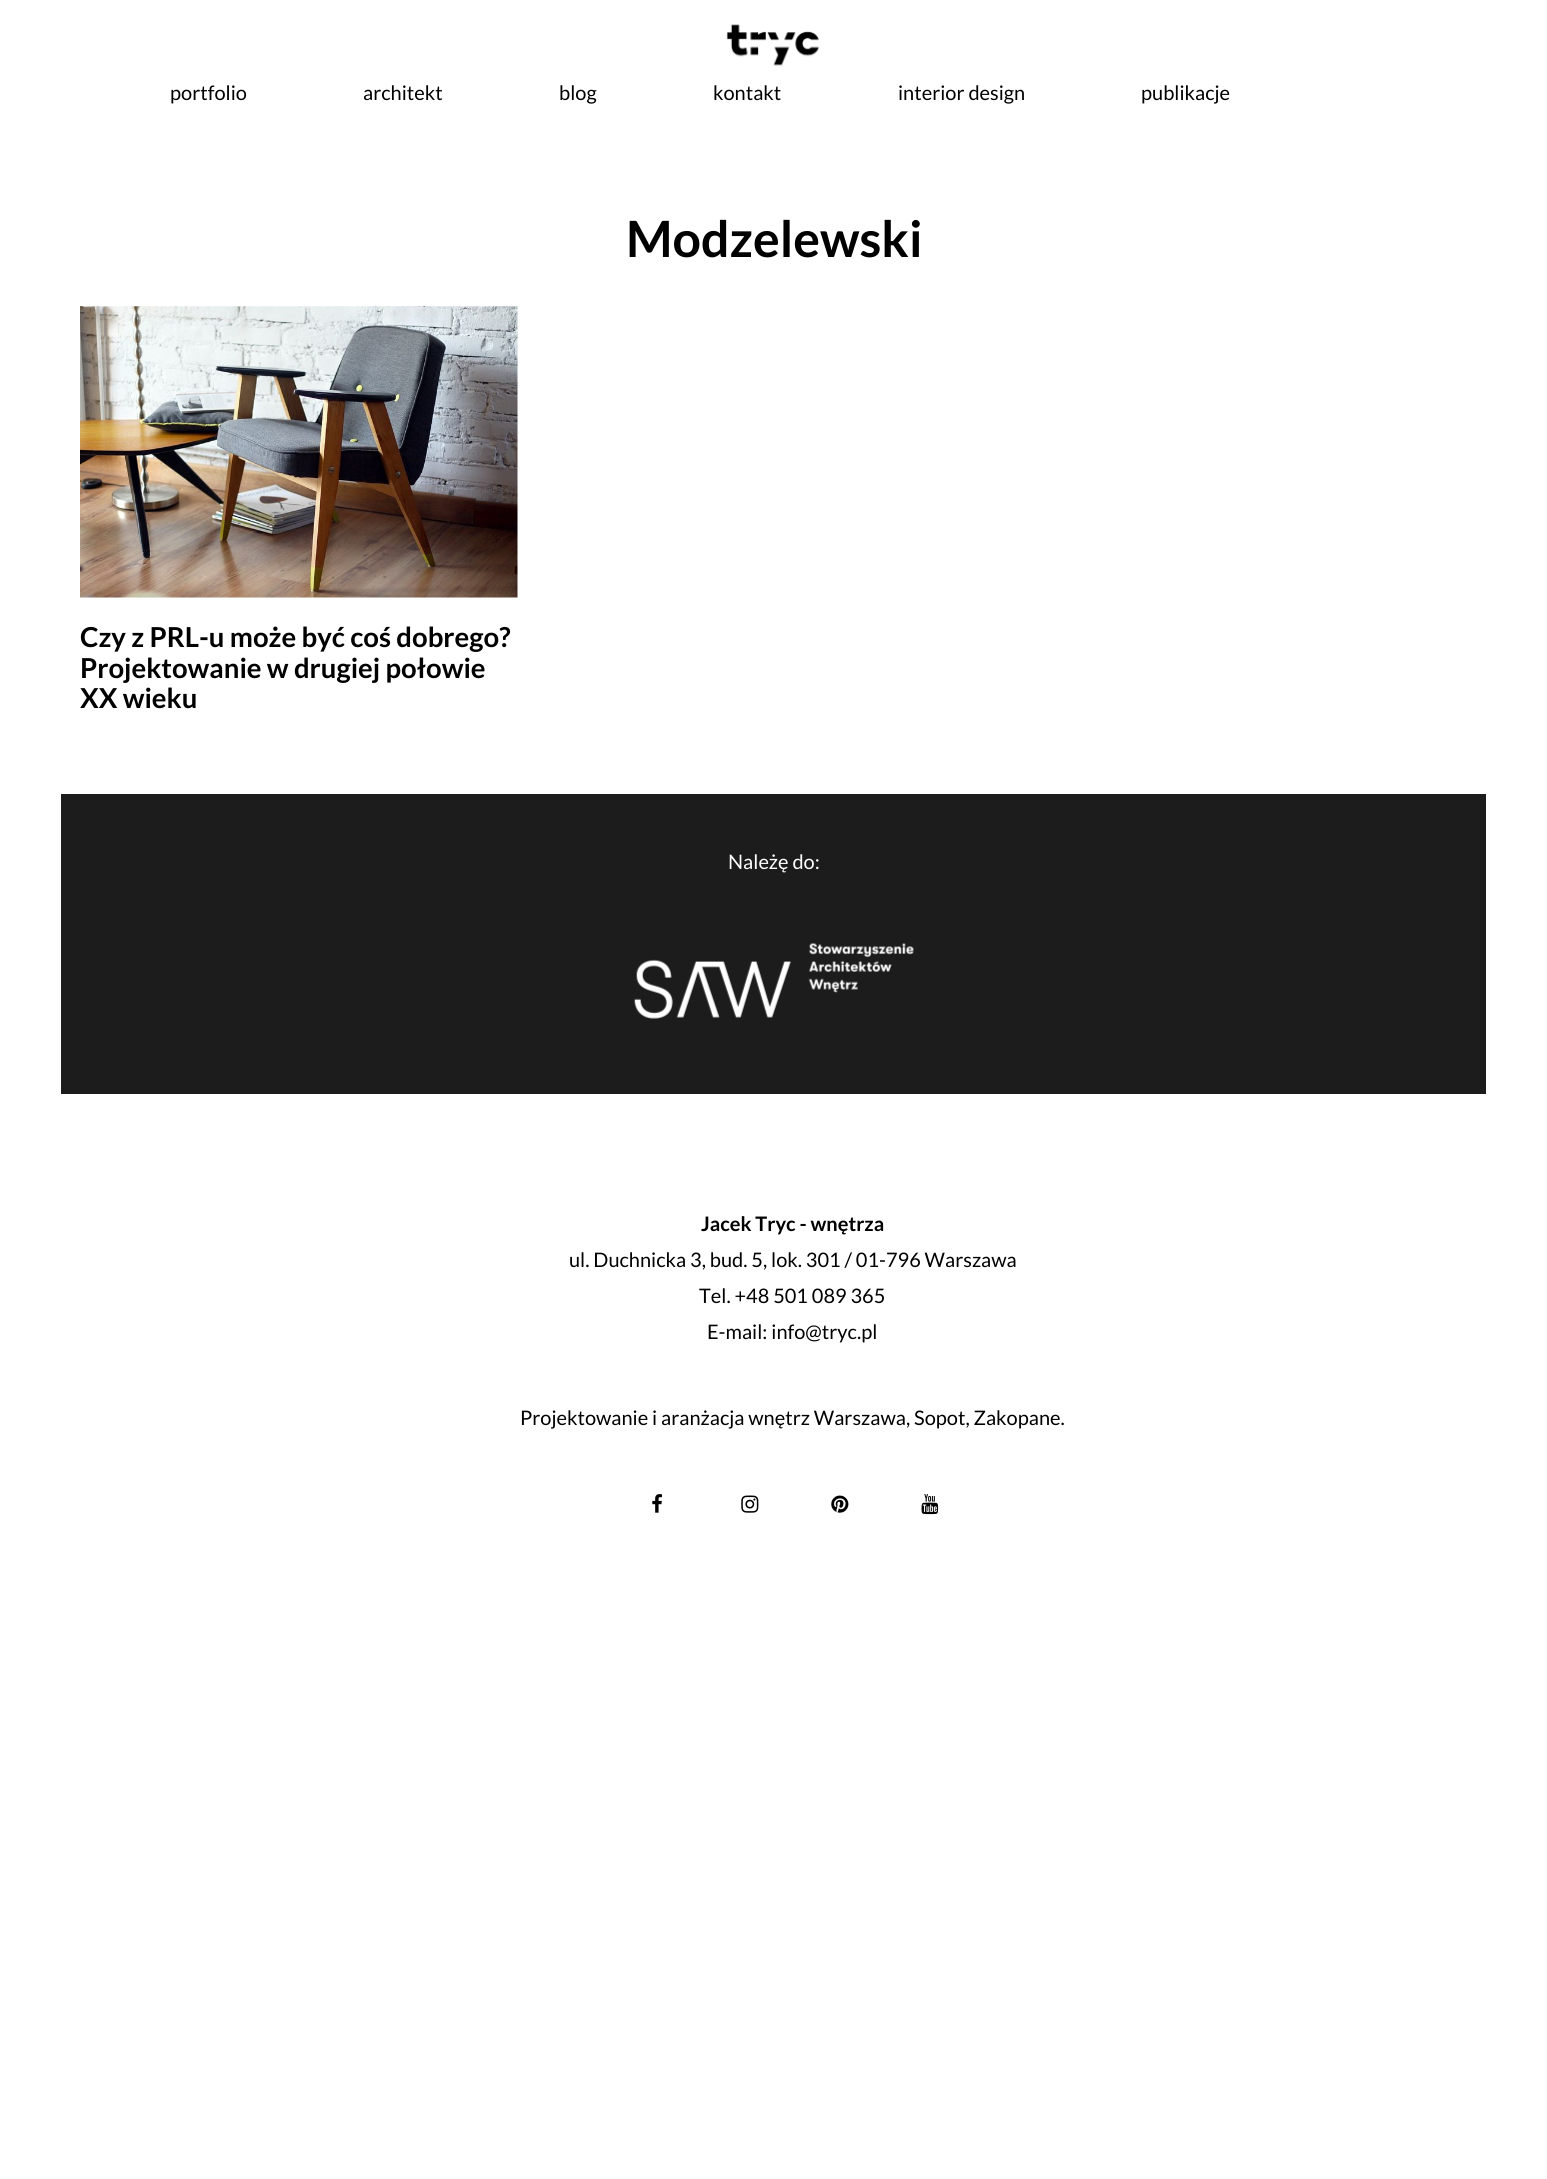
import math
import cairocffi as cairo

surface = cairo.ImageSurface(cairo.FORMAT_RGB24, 1547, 2179)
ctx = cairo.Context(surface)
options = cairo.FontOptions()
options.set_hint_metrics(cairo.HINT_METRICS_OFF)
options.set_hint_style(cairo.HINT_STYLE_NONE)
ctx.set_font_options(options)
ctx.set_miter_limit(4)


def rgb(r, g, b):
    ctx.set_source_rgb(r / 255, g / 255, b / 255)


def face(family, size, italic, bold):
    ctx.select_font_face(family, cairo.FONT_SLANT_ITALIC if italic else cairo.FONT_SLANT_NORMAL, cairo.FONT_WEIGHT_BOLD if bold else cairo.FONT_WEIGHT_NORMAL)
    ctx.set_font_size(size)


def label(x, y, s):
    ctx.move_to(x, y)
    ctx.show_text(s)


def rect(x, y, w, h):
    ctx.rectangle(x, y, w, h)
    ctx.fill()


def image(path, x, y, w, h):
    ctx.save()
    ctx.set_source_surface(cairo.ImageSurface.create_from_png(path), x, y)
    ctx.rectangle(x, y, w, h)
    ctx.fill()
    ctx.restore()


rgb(255, 255, 255)
ctx.paint()
image('image0.png', 726, 24, 93, 43)
face('Lato', 20, 0, 0)
rgb(0, 0, 0)
label(170, 100, 'portfolio')
label(363, 100, 'architekt')
label(559, 100, 'blog')
label(713, 100, 'kontakt')
label(898, 100, 'interior design')
label(1141, 100, 'publikacje')
face('Lato', 50, 0, 1)
label(626, 257, 'Modzelewski')
image('image1.png', 80, 306, 438, 292)
face('Lato', 27.5, 0, 1)
label(80, 647, 'Czy z PRL-u może być coś dobrego?')
label(80, 678, 'Projektowanie w drugiej połowie')
label(80, 708, 'XX wieku')
rgb(28, 28, 28)
rect(61, 794, 1425, 300)
face('Lato', 20, 0, 0)
rgb(255, 255, 255)
label(728, 869, 'Należę do:')
image('image2.png', 634, 943, 280, 76)
face('Lato', 20, 0, 1)
rgb(0, 0, 0)
label(701, 1231, 'Jacek Tryc - wnętrza')
face('Lato', 20, 0, 0)
label(569, 1267, 'ul. Duchnicka 3, bud. 5, lok. 301 / 01-796 Warszawa')
label(699, 1303, 'Tel. +48 501 089 365')
label(707, 1339, 'E-mail: info@tryc.pl')
label(520, 1425, 'Projektowanie i aranżacja wnętrz Warszawa, Sopot, Zakopane.')
image('image3.png', 652, 1494, 10, 19)
image('image4.png', 741, 1495, 18, 18)
image('image5.png', 831, 1495, 18, 18)
image('image6.png', 921, 1494, 18, 21)
surface.write_to_png('render.png')
